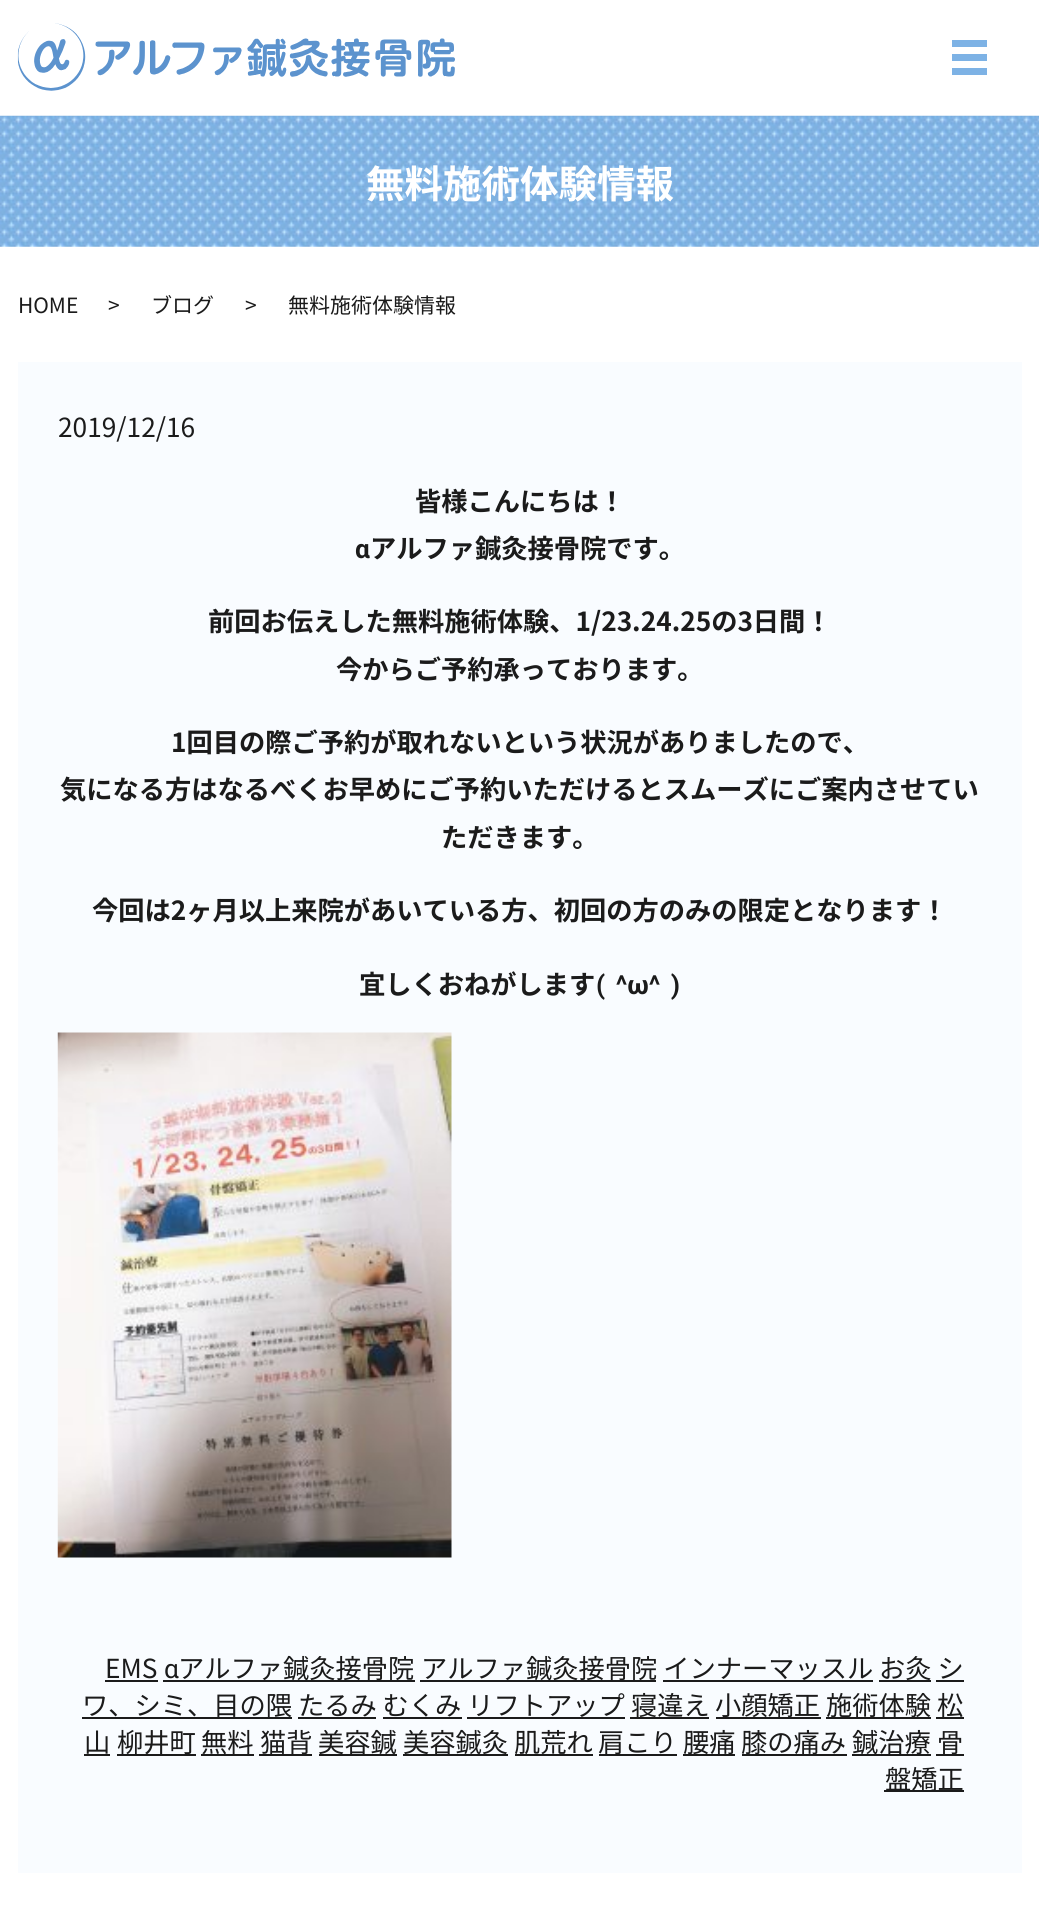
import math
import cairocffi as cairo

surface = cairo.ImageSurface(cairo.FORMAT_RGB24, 1039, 1910)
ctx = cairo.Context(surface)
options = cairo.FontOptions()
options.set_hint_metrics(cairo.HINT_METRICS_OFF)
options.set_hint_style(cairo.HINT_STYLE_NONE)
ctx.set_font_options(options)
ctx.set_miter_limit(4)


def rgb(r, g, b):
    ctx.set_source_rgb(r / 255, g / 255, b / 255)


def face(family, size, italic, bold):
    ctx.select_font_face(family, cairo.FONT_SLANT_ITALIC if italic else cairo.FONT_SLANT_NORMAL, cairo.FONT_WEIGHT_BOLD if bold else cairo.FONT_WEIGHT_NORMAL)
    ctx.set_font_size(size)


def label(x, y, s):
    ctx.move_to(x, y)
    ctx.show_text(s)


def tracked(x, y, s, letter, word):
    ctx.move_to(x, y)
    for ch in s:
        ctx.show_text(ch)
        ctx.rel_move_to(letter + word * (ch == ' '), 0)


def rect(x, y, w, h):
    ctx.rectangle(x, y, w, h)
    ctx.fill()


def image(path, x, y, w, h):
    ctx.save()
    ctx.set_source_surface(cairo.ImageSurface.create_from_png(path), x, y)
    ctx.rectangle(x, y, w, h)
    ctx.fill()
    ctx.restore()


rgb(255, 255, 255)
ctx.paint()
image('image0.png', 17, 23, 438, 68)
rgb(125, 178, 229)
rect(952, 40, 35, 7)
rect(952, 54, 35, 7)
rect(952, 68, 35, 7)
image('image1.png', 0, 115, 1039, 132)
face('Noto Sans JP', 38.5, 0, 1)
rgb(255, 255, 255)
label(366, 198, '無料施術体験情報')
face('Noto Sans JP', 21, 0, 0)
rgb(27, 27, 27)
label(18, 313, 'HOME')
label(108, 313, '>')
label(151, 313, 'ブログ')
label(245, 313, '>')
label(288, 313, '無料施術体験情報')
rgb(249, 252, 255)
rect(18, 362, 1004, 1511)
face('Noto Sans JP', 26.25, 0, 0)
rgb(27, 27, 27)
label(58, 437, '2019/12/16')
face('Noto Sans JP', 26.25, 0, 1)
label(415, 511, '皆様こんにちは！')
face('Roboto', 26.25, 0, 1)
label(355, 558, 'α')
face('Noto Sans JP', 26.25, 0, 1)
label(370, 558, 'アルファ鍼灸接骨院です。')
label(208, 631, '前回お伝えした無料施術体験、1/23.24.25の3日間！')
label(336, 679, '今からご予約承っております。')
label(171, 752, '1回目の際ご予約が取れないという状況がありましたので、')
label(60, 799, '気になる方はなるべくお早めにご予約いただけるとスムーズにご案内させてい')
label(441, 847, 'ただきます。')
label(92, 920, '今回は2ヶ月以上来院があいている方、初回の方のみの限定となります！')
label(359, 994, '宜しくおねがします')
face('Roboto', 26.25, 0, 1)
tracked(596, 994, '( ^ω^ )', 0, 4)
image('image2.png', 57, 1032, 395, 526)
face('Noto Sans JP', 26.25, 0, 0)
label(105, 1678, 'EMS')
rect(105, 1680, 53, 2)
face('Roboto', 26.25, 0, 0)
label(164, 1678, 'α')
rect(163, 1680, 252, 2)
face('Noto Sans JP', 26.25, 0, 0)
label(178, 1678, 'アルファ鍼灸接骨院')
rect(420, 1680, 236, 2)
label(421, 1678, 'アルファ鍼灸接骨院 インナーマッスル')
rect(879, 1680, 52, 2)
label(879, 1678, 'お灸 シ')
rect(663, 1680, 210, 2)
rect(82, 1717, 210, 2)
label(82, 1715, 'ワ、シミ、目の隈 たるみ むくみ リフトアップ')
rect(936, 1680, 28, 2)
rect(630, 1717, 79, 2)
label(631, 1715, '寝違え')
rect(716, 1717, 105, 2)
label(715, 1715, '小顔矯正')
rect(826, 1717, 105, 2)
label(826, 1715, '施術体験')
rect(936, 1717, 28, 2)
label(937, 1715, '松')
rect(298, 1717, 78, 2)
rect(383, 1717, 79, 2)
rect(467, 1717, 158, 2)
label(84, 1752, '山')
rect(84, 1754, 26, 2)
rect(117, 1754, 79, 2)
label(117, 1752, '柳井町')
rect(201, 1754, 53, 2)
label(201, 1752, '無料')
rect(259, 1754, 53, 2)
label(260, 1752, '猫背')
rect(319, 1754, 78, 2)
label(318, 1752, '美容鍼')
rect(403, 1754, 105, 2)
label(403, 1752, '美容鍼灸')
rect(515, 1754, 78, 2)
label(514, 1752, '肌荒れ')
rect(599, 1754, 78, 2)
label(598, 1752, '肩こり')
rect(683, 1754, 52, 2)
label(683, 1752, '腰痛')
rect(742, 1754, 105, 2)
label(741, 1752, '膝の痛み')
rect(852, 1754, 79, 2)
label(852, 1752, '鍼治療')
rect(936, 1754, 28, 2)
label(937, 1752, '骨')
rect(884, 1790, 80, 2)
label(885, 1789, '盤矯正')
surface.write_to_png('render.png')
